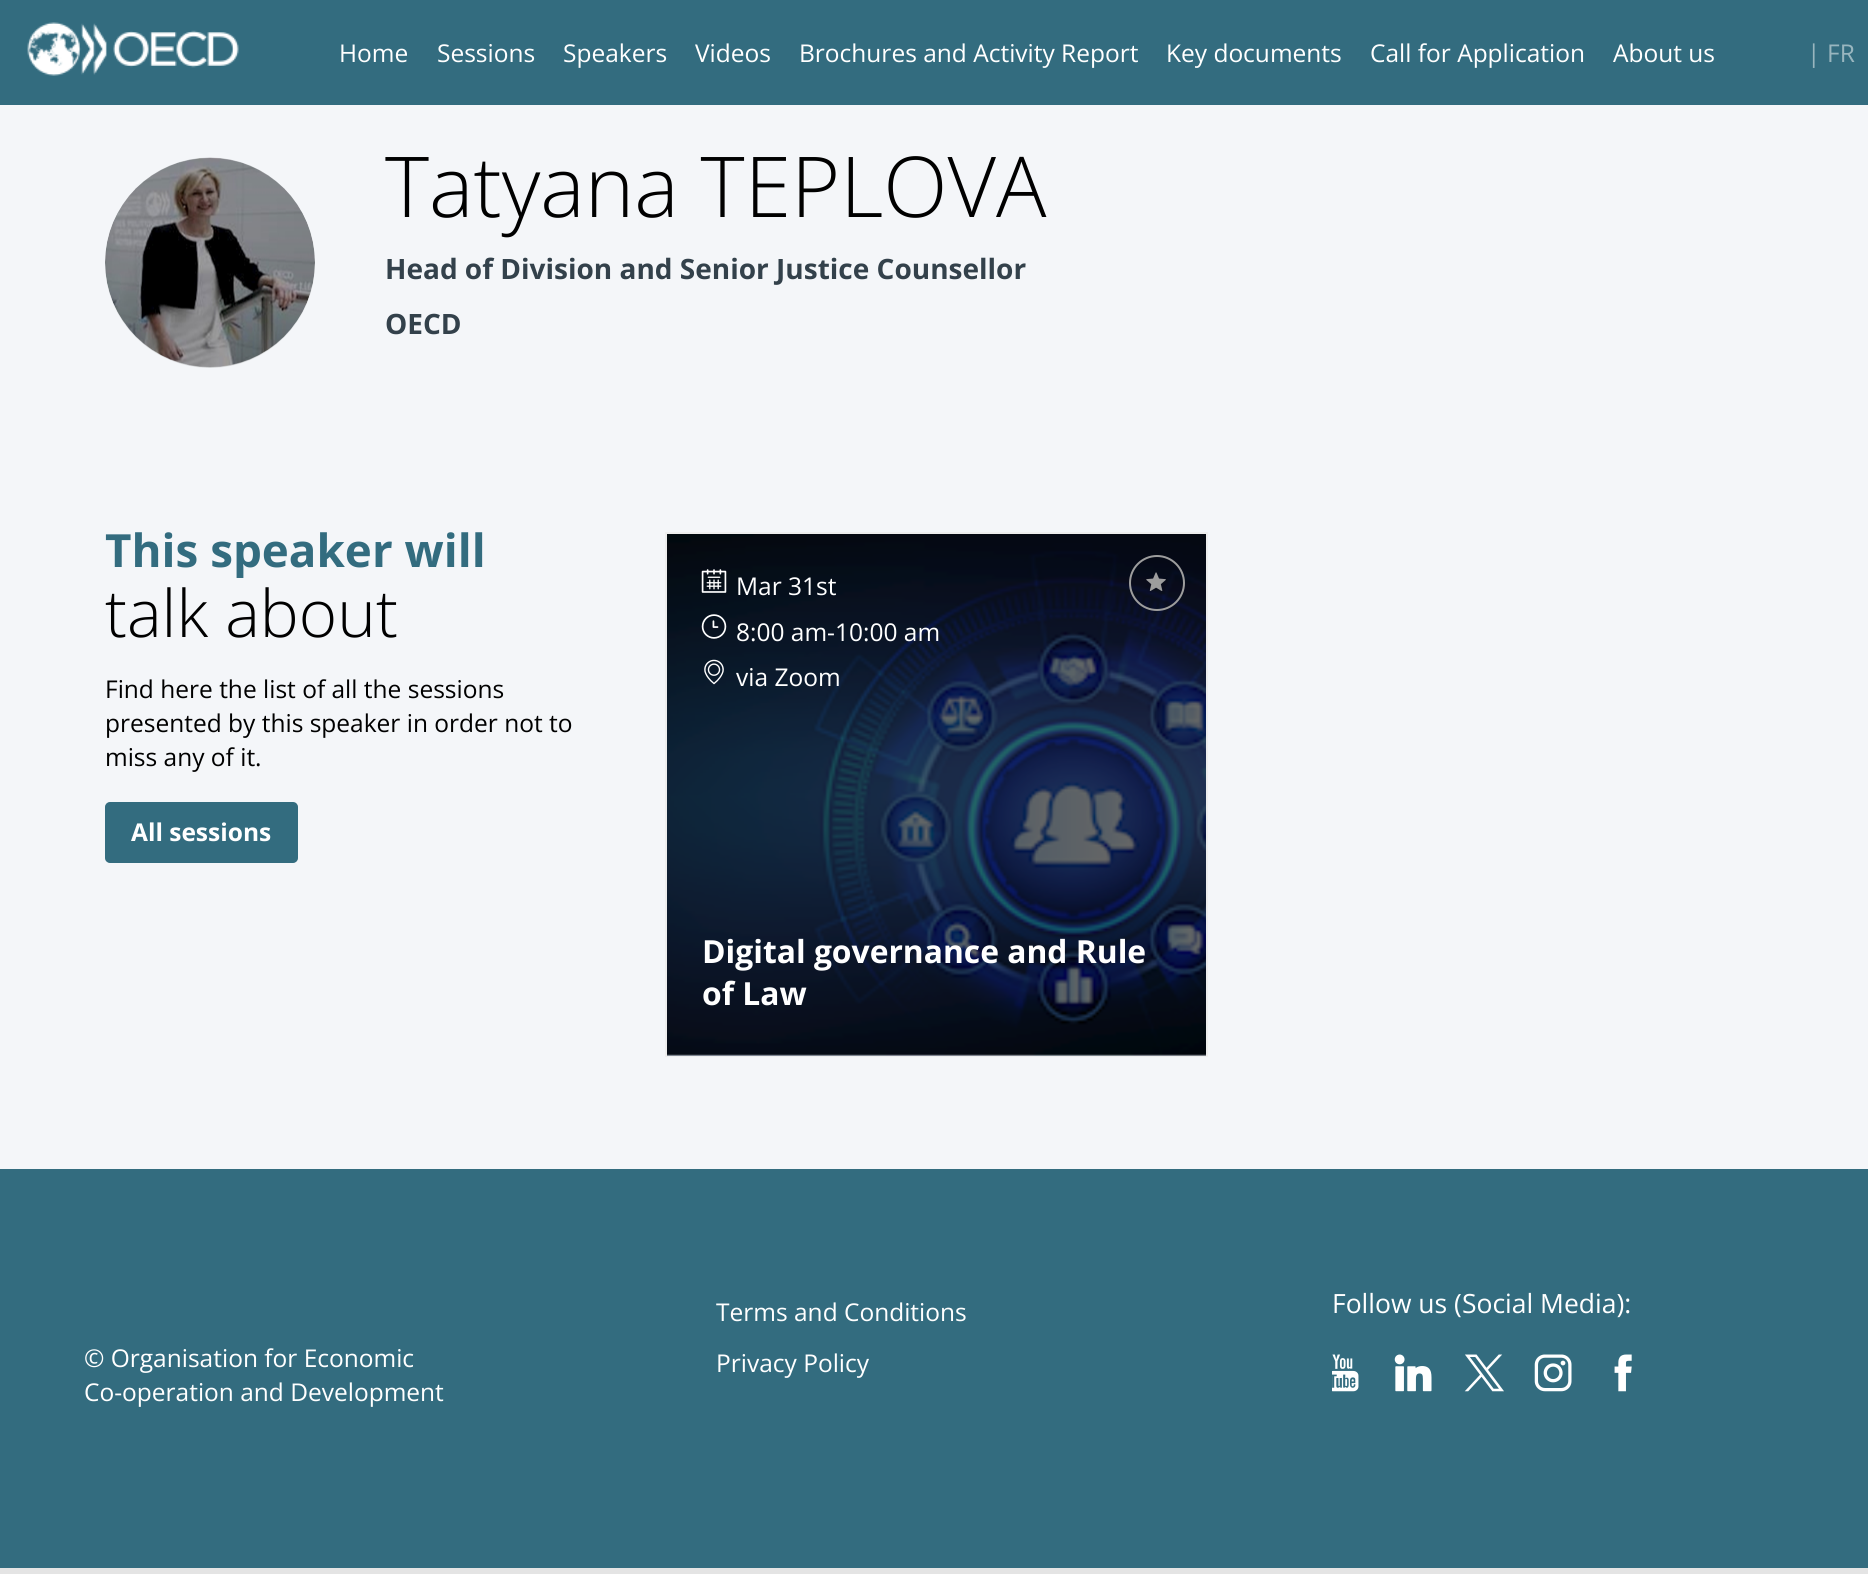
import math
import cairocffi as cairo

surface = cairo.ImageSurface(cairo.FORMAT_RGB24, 1868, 1574)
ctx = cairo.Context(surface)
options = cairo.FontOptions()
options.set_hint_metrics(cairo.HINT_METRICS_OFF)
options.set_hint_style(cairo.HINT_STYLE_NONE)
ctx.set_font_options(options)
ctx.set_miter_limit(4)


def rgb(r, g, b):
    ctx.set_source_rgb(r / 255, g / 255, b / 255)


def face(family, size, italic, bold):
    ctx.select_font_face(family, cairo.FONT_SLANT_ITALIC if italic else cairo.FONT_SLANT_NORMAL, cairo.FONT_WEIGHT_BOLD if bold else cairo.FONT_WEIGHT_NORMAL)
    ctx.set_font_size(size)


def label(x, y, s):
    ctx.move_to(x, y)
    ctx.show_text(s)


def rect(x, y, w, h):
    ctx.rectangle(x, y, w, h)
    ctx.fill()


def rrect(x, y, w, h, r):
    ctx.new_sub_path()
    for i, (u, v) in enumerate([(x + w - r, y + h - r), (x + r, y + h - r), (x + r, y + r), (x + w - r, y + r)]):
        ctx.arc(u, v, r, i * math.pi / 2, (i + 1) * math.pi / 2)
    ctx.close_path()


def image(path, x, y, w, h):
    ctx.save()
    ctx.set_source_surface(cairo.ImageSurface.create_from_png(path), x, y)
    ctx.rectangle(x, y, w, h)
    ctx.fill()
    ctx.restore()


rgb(228, 228, 228)
ctx.paint()
rgb(51, 108, 127)
rect(0, 0, 1868, 105)
image('image0.png', 27, 22, 212, 54)
face('Open Sans', 24.5, 0, 0)
rgb(255, 255, 255)
label(339, 62, 'Home')
label(437, 62, 'Sessions')
label(563, 62, 'Speakers')
label(695, 62, 'Videos')
label(799, 62, 'Brochures and Activity Report')
label(1166, 62, 'Key documents')
label(1370, 62, 'Call for Application')
label(1613, 62, 'About us')
rgb(153, 182, 191)
label(1807, 62, '|')
label(1827, 62, 'FR')
rgb(244, 246, 249)
rect(0, 105, 1868, 1064)
rgb(225, 227, 229)
ctx.new_path()
ctx.arc(210, 263, 105, 0, 2 * math.pi)
ctx.fill()
image('image1.png', 105, 157, 210, 211)
face('Open Sans Light', 84, 0, 0)
rgb(0, 0, 0)
label(385, 217, 'Tatyana TEPLOVA')
face('Open Sans', 28, 0, 1)
rgb(51, 65, 75)
label(385, 279, 'Head of Division and Senior Justice Counsellor')
label(385, 334, 'OECD')
face('Open Sans', 45.75, 0, 1)
rgb(51, 108, 127)
label(105, 567, 'This speaker will')
face('Open Sans Light', 65.5, 0, 0)
rgb(0, 0, 0)
label(105, 637, 'talk about')
face('Open Sans', 24.5, 0, 0)
label(105, 698, 'Find here the list of all the sessions')
label(105, 732, 'presented by this speaker in order not to')
label(105, 766, 'miss any of it.')
rgb(51, 108, 127)
rrect(106, 803, 191, 59, 4)
ctx.fill_preserve()
ctx.stroke()
face('Open Sans', 24.5, 0, 1)
rgb(255, 255, 255)
label(131, 841, 'All sessions')
ctx.rectangle(666, 533, 541, 523)
rgb(238, 238, 238)
ctx.stroke()
image('image2.png', 667, 534, 539, 522)
image('image3.png', 701, 569, 26, 24)
face('Open Sans', 24.5, 0, 0)
rgb(255, 255, 255)
label(736, 595, 'Mar 31st')
image('image4.png', 701, 614, 26, 25)
label(736, 641, '8:00 am-10:00 am')
image('image5.png', 704, 659, 20, 26)
label(736, 686, 'via Zoom')
ctx.new_path()
ctx.arc(1157, 583, 27, 0, 2 * math.pi)
rgb(157, 157, 157)
ctx.stroke()
image('image6.png', 1146, 572, 20, 19)
face('Open Sans', 31.8, 0, 1)
rgb(255, 255, 255)
label(702, 963, 'Digital governance and Rule')
label(702, 1005, 'of Law')
rgb(51, 108, 127)
rect(0, 1169, 1868, 399)
face('Open Sans', 24.5, 0, 0)
rgb(255, 255, 255)
label(84, 1367, '© Organisation for Economic')
label(84, 1401, 'Co-operation and Development')
label(716, 1321, 'Terms and Conditions')
label(716, 1372, 'Privacy Policy')
face('Open Sans', 26.5, 0, 0)
label(1332, 1313, 'Follow us (Social Media):')
image('image7.png', 1332, 1354, 27, 38)
image('image8.png', 1394, 1354, 38, 38)
image('image9.png', 1464, 1354, 40, 38)
image('image10.png', 1534, 1354, 38, 38)
image('image11.png', 1614, 1354, 18, 38)
surface.write_to_png('render.png')
